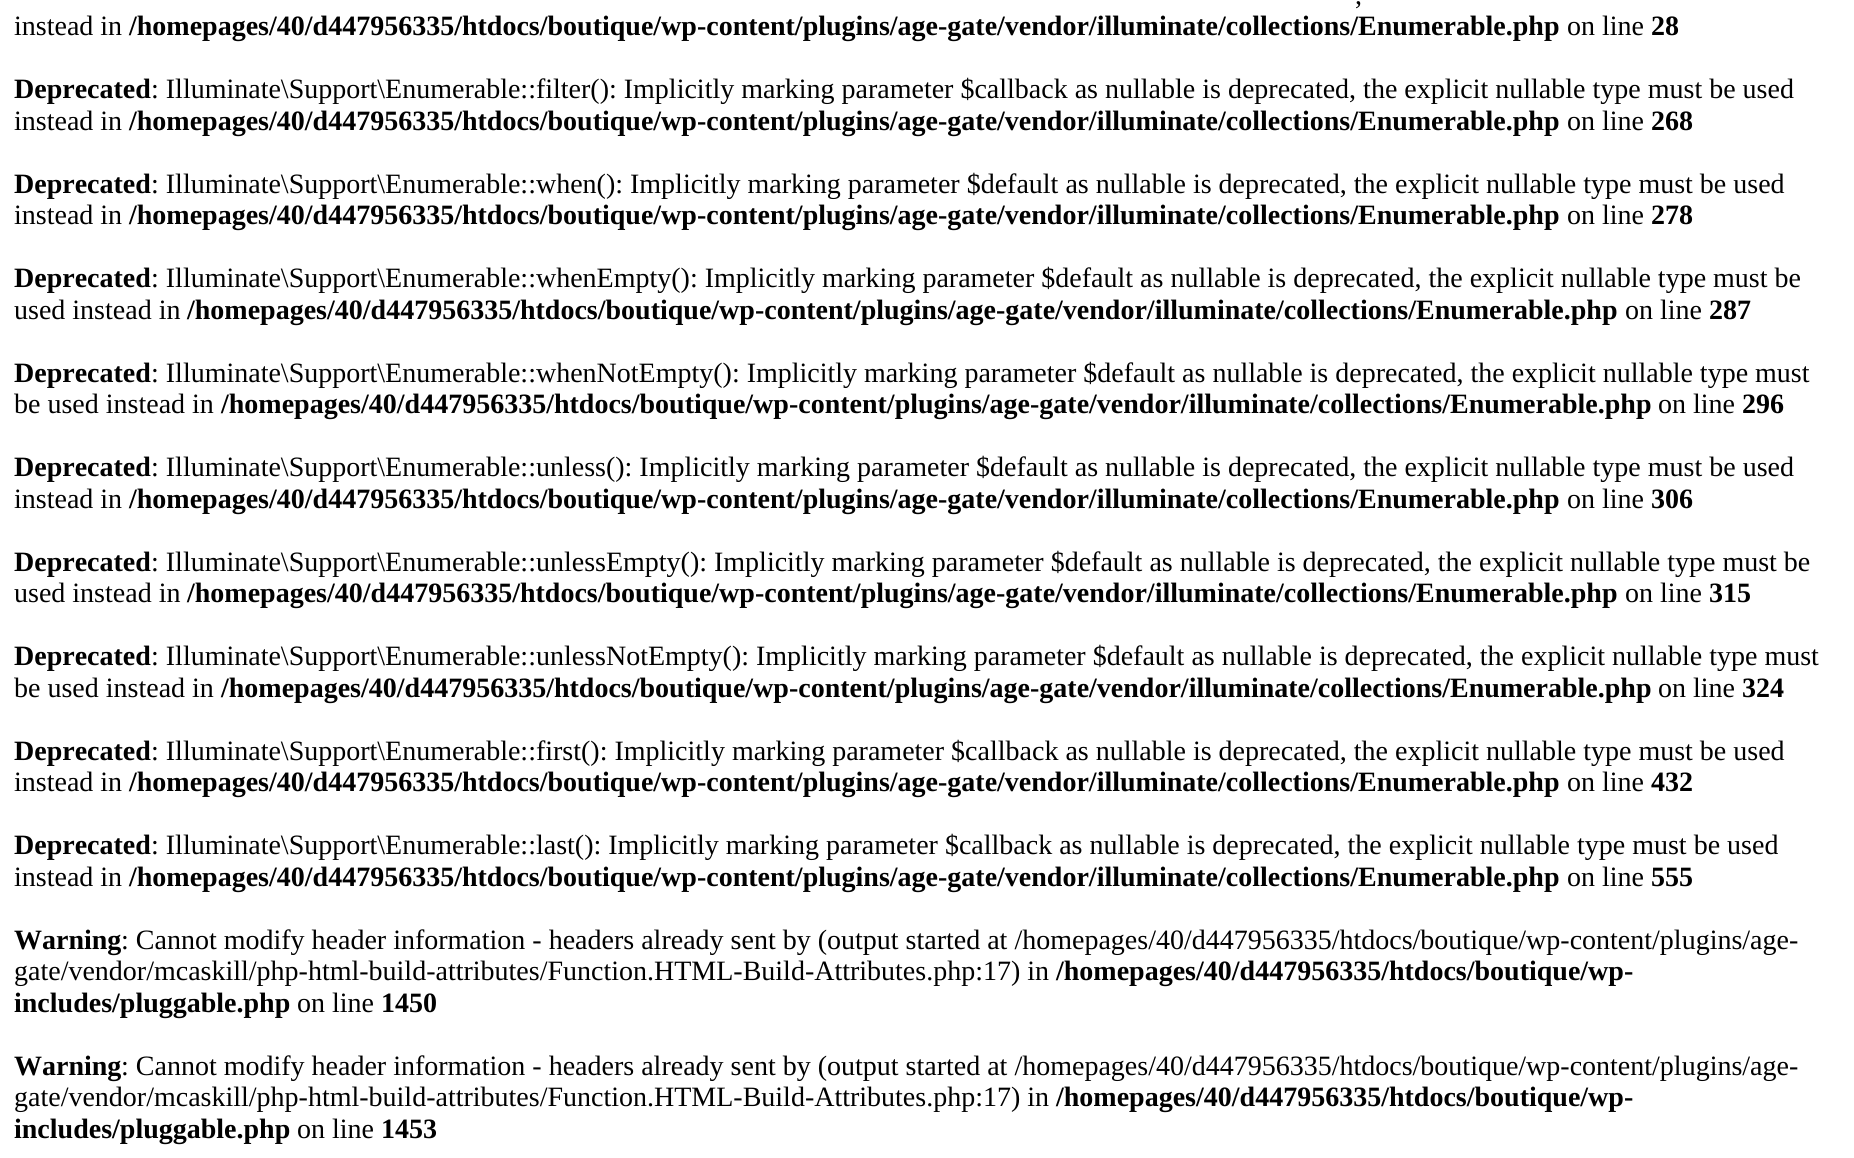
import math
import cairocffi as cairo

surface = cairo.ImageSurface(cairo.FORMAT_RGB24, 1854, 1158)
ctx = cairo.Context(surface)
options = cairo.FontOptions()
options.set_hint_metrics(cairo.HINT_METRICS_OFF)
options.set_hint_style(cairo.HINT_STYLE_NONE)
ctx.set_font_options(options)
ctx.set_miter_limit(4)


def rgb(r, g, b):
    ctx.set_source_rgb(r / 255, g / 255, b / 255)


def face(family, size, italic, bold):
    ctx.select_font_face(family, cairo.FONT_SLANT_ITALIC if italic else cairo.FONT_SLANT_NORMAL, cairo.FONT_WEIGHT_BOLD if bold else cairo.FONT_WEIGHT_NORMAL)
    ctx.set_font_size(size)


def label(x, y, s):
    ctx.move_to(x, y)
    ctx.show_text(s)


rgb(255, 255, 255)
ctx.paint()
face('Liberation Serif', 28, 0, 0)
rgb(0, 0, 0)
label(1355, 4, ',')
label(14, 35, 'instead in')
face('Liberation Serif', 28, 0, 1)
label(129, 35, '/homepages/40/d447956335/htdocs/boutique/wp-content/plugins/age-gate/vendor/illuminate/collections/Enumerable.php')
face('Liberation Serif', 28, 0, 0)
label(1567, 35, 'on line')
face('Liberation Serif', 28, 0, 1)
label(1651, 35, '28')
label(14, 98, 'Deprecated')
face('Liberation Serif', 28, 0, 0)
label(151, 98, ': Illuminate\\Support\\Enumerable::filter(): Implicitly marking parameter $callback as nullable is deprecated, the explicit nullable type must be used')
label(14, 130, 'instead in')
face('Liberation Serif', 28, 0, 1)
label(129, 130, '/homepages/40/d447956335/htdocs/boutique/wp-content/plugins/age-gate/vendor/illuminate/collections/Enumerable.php')
face('Liberation Serif', 28, 0, 0)
label(1567, 130, 'on line')
face('Liberation Serif', 28, 0, 1)
label(1651, 130, '268')
label(14, 193, 'Deprecated')
face('Liberation Serif', 28, 0, 0)
label(151, 193, ': Illuminate\\Support\\Enumerable::when(): Implicitly marking parameter $default as nullable is deprecated, the explicit nullable type must be used')
label(14, 224, 'instead in')
face('Liberation Serif', 28, 0, 1)
label(129, 224, '/homepages/40/d447956335/htdocs/boutique/wp-content/plugins/age-gate/vendor/illuminate/collections/Enumerable.php')
face('Liberation Serif', 28, 0, 0)
label(1567, 224, 'on line')
face('Liberation Serif', 28, 0, 1)
label(1651, 224, '278')
label(14, 287, 'Deprecated')
face('Liberation Serif', 28, 0, 0)
label(151, 287, ': Illuminate\\Support\\Enumerable::whenEmpty(): Implicitly marking parameter $default as nullable is deprecated, the explicit nullable type must be')
label(14, 319, 'used instead in')
face('Liberation Serif', 28, 0, 1)
label(187, 319, '/homepages/40/d447956335/htdocs/boutique/wp-content/plugins/age-gate/vendor/illuminate/collections/Enumerable.php')
face('Liberation Serif', 28, 0, 0)
label(1625, 319, 'on line')
face('Liberation Serif', 28, 0, 1)
label(1709, 319, '287')
label(14, 382, 'Deprecated')
face('Liberation Serif', 28, 0, 0)
label(151, 382, ': Illuminate\\Support\\Enumerable::whenNotEmpty(): Implicitly marking parameter $default as nullable is deprecated, the explicit nullable type must')
label(14, 413, 'be used instead in')
face('Liberation Serif', 28, 0, 1)
label(221, 413, '/homepages/40/d447956335/htdocs/boutique/wp-content/plugins/age-gate/vendor/illuminate/collections/Enumerable.php')
face('Liberation Serif', 28, 0, 0)
label(1658, 413, 'on line')
face('Liberation Serif', 28, 0, 1)
label(1742, 413, '296')
label(14, 476, 'Deprecated')
face('Liberation Serif', 28, 0, 0)
label(151, 476, ': Illuminate\\Support\\Enumerable::unless(): Implicitly marking parameter $default as nullable is deprecated, the explicit nullable type must be used')
label(14, 508, 'instead in')
face('Liberation Serif', 28, 0, 1)
label(129, 508, '/homepages/40/d447956335/htdocs/boutique/wp-content/plugins/age-gate/vendor/illuminate/collections/Enumerable.php')
face('Liberation Serif', 28, 0, 0)
label(1567, 508, 'on line')
face('Liberation Serif', 28, 0, 1)
label(1651, 508, '306')
label(14, 571, 'Deprecated')
face('Liberation Serif', 28, 0, 0)
label(151, 571, ': Illuminate\\Support\\Enumerable::unlessEmpty(): Implicitly marking parameter $default as nullable is deprecated, the explicit nullable type must be')
label(14, 602, 'used instead in')
face('Liberation Serif', 28, 0, 1)
label(187, 602, '/homepages/40/d447956335/htdocs/boutique/wp-content/plugins/age-gate/vendor/illuminate/collections/Enumerable.php')
face('Liberation Serif', 28, 0, 0)
label(1625, 602, 'on line')
face('Liberation Serif', 28, 0, 1)
label(1709, 602, '315')
label(14, 665, 'Deprecated')
face('Liberation Serif', 28, 0, 0)
label(151, 665, ': Illuminate\\Support\\Enumerable::unlessNotEmpty(): Implicitly marking parameter $default as nullable is deprecated, the explicit nullable type must')
label(14, 697, 'be used instead in')
face('Liberation Serif', 28, 0, 1)
label(221, 697, '/homepages/40/d447956335/htdocs/boutique/wp-content/plugins/age-gate/vendor/illuminate/collections/Enumerable.php')
face('Liberation Serif', 28, 0, 0)
label(1658, 697, 'on line')
face('Liberation Serif', 28, 0, 1)
label(1742, 697, '324')
label(14, 760, 'Deprecated')
face('Liberation Serif', 28, 0, 0)
label(151, 760, ': Illuminate\\Support\\Enumerable::first(): Implicitly marking parameter $callback as nullable is deprecated, the explicit nullable type must be used')
label(14, 791, 'instead in')
face('Liberation Serif', 28, 0, 1)
label(129, 791, '/homepages/40/d447956335/htdocs/boutique/wp-content/plugins/age-gate/vendor/illuminate/collections/Enumerable.php')
face('Liberation Serif', 28, 0, 0)
label(1567, 791, 'on line')
face('Liberation Serif', 28, 0, 1)
label(1651, 791, '432')
label(14, 854, 'Deprecated')
face('Liberation Serif', 28, 0, 0)
label(151, 854, ': Illuminate\\Support\\Enumerable::last(): Implicitly marking parameter $callback as nullable is deprecated, the explicit nullable type must be used')
label(14, 886, 'instead in')
face('Liberation Serif', 28, 0, 1)
label(129, 886, '/homepages/40/d447956335/htdocs/boutique/wp-content/plugins/age-gate/vendor/illuminate/collections/Enumerable.php')
face('Liberation Serif', 28, 0, 0)
label(1567, 886, 'on line')
face('Liberation Serif', 28, 0, 1)
label(1651, 886, '555')
label(14, 949, 'Warning')
face('Liberation Serif', 28, 0, 0)
label(121, 949, ': Cannot modify header information - headers already sent by (output started at /homepages/40/d447956335/htdocs/boutique/wp-content/plugins/age-')
label(14, 980, 'gate/vendor/mcaskill/php-html-build-attributes/Function.HTML-Build-Attributes.php:17) in')
face('Liberation Serif', 28, 0, 1)
label(1056, 980, '/homepages/40/d447956335/htdocs/boutique/wp-')
label(14, 1012, 'includes/pluggable.php')
face('Liberation Serif', 28, 0, 0)
label(297, 1012, 'on line')
face('Liberation Serif', 28, 0, 1)
label(381, 1012, '1450')
label(14, 1075, 'Warning')
face('Liberation Serif', 28, 0, 0)
label(121, 1075, ': Cannot modify header information - headers already sent by (output started at /homepages/40/d447956335/htdocs/boutique/wp-content/plugins/age-')
label(14, 1106, 'gate/vendor/mcaskill/php-html-build-attributes/Function.HTML-Build-Attributes.php:17) in')
face('Liberation Serif', 28, 0, 1)
label(1056, 1106, '/homepages/40/d447956335/htdocs/boutique/wp-')
label(14, 1138, 'includes/pluggable.php')
face('Liberation Serif', 28, 0, 0)
label(297, 1138, 'on line')
face('Liberation Serif', 28, 0, 1)
label(381, 1138, '1453')
surface.write_to_png('render.png')
